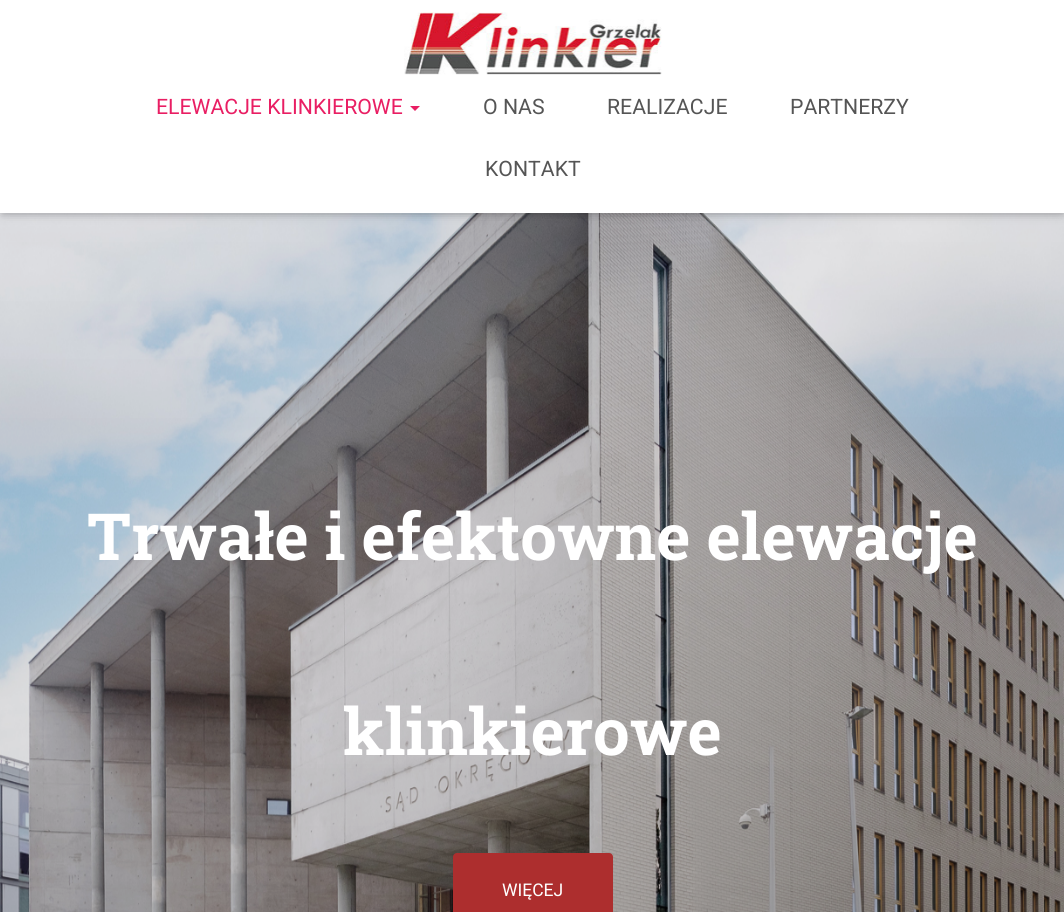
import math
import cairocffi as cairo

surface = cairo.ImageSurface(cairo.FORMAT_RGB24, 1064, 912)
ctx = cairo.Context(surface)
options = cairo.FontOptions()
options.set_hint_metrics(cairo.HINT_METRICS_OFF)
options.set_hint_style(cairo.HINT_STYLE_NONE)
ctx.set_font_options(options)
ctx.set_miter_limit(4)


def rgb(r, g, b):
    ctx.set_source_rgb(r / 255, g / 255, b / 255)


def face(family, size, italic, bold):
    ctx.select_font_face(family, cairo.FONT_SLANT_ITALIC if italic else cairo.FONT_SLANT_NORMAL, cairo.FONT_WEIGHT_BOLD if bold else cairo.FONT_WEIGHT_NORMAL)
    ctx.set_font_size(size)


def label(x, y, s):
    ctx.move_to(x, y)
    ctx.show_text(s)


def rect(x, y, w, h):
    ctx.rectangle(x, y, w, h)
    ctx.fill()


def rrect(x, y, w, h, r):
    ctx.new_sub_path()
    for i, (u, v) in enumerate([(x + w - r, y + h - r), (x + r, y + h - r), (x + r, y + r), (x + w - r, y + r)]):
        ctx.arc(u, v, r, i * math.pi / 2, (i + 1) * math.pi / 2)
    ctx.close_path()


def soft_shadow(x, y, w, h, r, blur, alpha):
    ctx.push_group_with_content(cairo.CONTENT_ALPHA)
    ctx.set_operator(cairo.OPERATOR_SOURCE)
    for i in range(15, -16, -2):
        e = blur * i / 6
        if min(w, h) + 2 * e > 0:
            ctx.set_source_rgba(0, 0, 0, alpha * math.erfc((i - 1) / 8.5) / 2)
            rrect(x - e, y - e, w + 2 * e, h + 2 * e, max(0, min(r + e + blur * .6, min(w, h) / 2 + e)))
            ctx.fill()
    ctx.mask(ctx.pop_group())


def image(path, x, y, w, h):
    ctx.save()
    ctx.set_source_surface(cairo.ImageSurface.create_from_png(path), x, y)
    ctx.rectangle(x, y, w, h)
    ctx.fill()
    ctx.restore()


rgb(255, 255, 255)
ctx.paint()
image('image1.png', 0, 213, 1064, 699)
gradient = cairo.LinearGradient(532, 87, 533, 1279)
gradient.add_color_stop_rgba(0, 0.118, 0.118, 0.118, 0.07)
gradient.add_color_stop_rgba(1, 0, 0, 0, 0.15)
ctx.set_source(gradient)
rect(0, 213, 1064, 699)
rgb(0, 0, 0)
soft_shadow(3, 8, 1060, 207, 0, 3, 0.1)
soft_shadow(0, 1, 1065, 213, 0, 6, 0.12)
soft_shadow(8, 9, 1050, 197, 0, 6, 0.42)
rgb(255, 255, 255)
rect(0, 0, 1064, 213)
image('image0.png', 404, 12, 258, 63)
face('Roboto', 21.25, 0, 0)
rgb(233, 30, 99)
label(156, 114, 'ELEWACJE KLINKIEROWE')
ctx.new_path()
ctx.move_to(410, 106)
ctx.line_to(420, 106)
ctx.line_to(415, 111)
ctx.close_path()
ctx.fill()
rgb(85, 85, 85)
label(483, 114, 'O NAS')
label(607, 114, 'REALIZACJE')
label(790, 114, 'PARTNERZY')
label(485, 176, 'KONTAKT')
face('Roboto Slab', 65, 0, 1)
rgb(255, 255, 255)
label(87, 560, 'Trwałe i efektowne elewacje')
label(343, 755, 'klinkierowe')
rgb(173, 46, 46)
rrect(453, 853, 160, 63, 4)
ctx.fill()
face('Roboto', 17.5, 0, 0)
rgb(255, 255, 255)
label(502, 896, 'WIĘCEJ')
surface.write_to_png('render.png')
